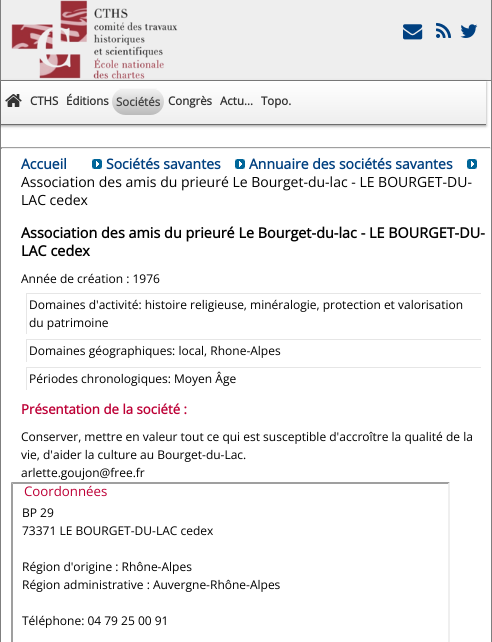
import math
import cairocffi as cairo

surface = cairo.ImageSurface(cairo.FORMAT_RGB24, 492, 642)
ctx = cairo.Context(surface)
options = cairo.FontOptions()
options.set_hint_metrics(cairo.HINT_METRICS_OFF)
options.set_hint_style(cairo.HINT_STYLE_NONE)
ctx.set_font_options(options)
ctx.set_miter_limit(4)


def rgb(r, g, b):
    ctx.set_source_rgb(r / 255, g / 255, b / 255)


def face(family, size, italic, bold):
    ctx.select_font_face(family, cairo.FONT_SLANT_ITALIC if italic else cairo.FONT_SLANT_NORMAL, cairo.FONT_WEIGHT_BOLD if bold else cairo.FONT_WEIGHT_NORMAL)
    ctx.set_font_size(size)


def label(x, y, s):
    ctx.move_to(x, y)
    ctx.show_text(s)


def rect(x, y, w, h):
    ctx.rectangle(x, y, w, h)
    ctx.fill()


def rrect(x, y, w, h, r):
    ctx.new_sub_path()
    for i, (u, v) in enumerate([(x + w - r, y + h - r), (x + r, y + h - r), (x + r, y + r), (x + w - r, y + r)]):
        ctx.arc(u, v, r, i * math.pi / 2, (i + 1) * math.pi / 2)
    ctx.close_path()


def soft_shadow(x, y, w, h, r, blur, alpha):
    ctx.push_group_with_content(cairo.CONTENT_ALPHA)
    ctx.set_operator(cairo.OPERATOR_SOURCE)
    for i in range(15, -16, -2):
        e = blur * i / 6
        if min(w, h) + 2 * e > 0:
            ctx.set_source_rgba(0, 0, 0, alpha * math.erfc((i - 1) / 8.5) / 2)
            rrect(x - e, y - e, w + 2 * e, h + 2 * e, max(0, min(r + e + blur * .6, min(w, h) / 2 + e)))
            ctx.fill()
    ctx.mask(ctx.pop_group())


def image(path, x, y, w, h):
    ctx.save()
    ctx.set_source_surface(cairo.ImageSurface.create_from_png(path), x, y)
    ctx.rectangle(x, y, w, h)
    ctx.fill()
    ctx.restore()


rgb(255, 255, 255)
ctx.paint()
rgb(127, 127, 127)
rect(491, 0, 1, 642)
rect(0, 0, 1, 642)
rgb(238, 238, 238)
rect(1, 0, 490, 80)
rgb(127, 127, 127)
rect(1, 80, 490, 1)
image('image0.png', 11, 0, 167, 79)
image('image1.png', 403, 24, 20, 16)
image('image2.png', 436, 22, 16, 16)
image('image3.png', 460, 24, 18, 14)
rgb(0, 0, 0)
soft_shadow(1, 82, 485, 44, 0, 1.5, 0.4)
gradient = cairo.LinearGradient(1, 81, 1, 124)
gradient.add_color_stop_rgba(0, 1, 1, 1, 1)
gradient.add_color_stop_rgba(1, 0.933, 0.933, 0.933, 1)
ctx.set_source(gradient)
rect(1, 81, 485, 43)
rgb(109, 109, 109)
rect(1, 124, 485, 1)
image('image4.png', 5, 94, 17, 13)
face('Open Sans', 11.5, 0, 1)
rgb(51, 51, 51)
label(30, 105, 'CTHS')
label(66, 105, 'Éditions')
ctx.save()
rrect(112, 88, 52, 27, 13.5)
ctx.clip()
gradient = cairo.LinearGradient(112, 89, 112, 115)
gradient.add_color_stop_rgba(0, 0.945, 0.945, 0.945, 1)
gradient.add_color_stop_rgba(1, 0.733, 0.733, 0.733, 1)
ctx.set_source(gradient)
ctx.new_path()
ctx.move_to(112, 89)
ctx.line_to(164, 89)
ctx.line_to(164, 101.5)
ctx.curve_to(164, 109, 158, 115, 150.5, 115)
ctx.line_to(125.5, 115)
ctx.curve_to(118, 115, 112, 109, 112, 101.5)
ctx.close_path()
ctx.fill()
ctx.restore()
rgb(248, 248, 248)
rect(119, 88, 38, 1)
rgb(68, 68, 68)
label(116, 106, 'Sociétés')
rgb(51, 51, 51)
label(168, 105, 'Congrès')
label(220, 105, 'Actu...')
label(261, 105, 'Topo.')
rgb(159, 159, 159)
rect(1, 147, 490, 1)
rgb(238, 238, 238)
rect(490, 147, 1, 2)
rect(1, 148, 490, 1)
rgb(159, 159, 159)
rect(1, 147, 1, 2)
face('Open Sans', 14, 0, 1)
rgb(0, 64, 128)
label(21, 169, 'Accueil')
image('image5.png', 92, 159, 10, 10)
label(106, 169, 'Sociétés savantes')
image('image5.png', 235, 159, 10, 10)
label(249, 169, 'Annuaire des sociétés savantes')
image('image5.png', 467, 159, 10, 10)
face('Open Sans', 14, 0, 0)
rgb(0, 0, 0)
label(21, 187, 'Association des amis du prieuré Le Bourget-du-lac - LE BOURGET-DU-')
label(21, 205, 'LAC cedex')
face('Open Sans', 14.4, 0, 1)
label(21, 238, 'Association des amis du prieuré Le Bourget-du-lac - LE BOURGET-DU-')
label(21, 256, 'LAC cedex')
face('Open Sans', 12, 0, 0)
label(21, 283, 'Année de création : 1976')
rgb(230, 230, 230)
rect(26, 293, 455, 1)
rect(26, 293, 1, 41)
rgb(0, 0, 0)
label(29, 309, 'Domaines d\'activité: histoire religieuse, minéralogie, protection et valorisation')
label(29, 327, 'du patrimoine')
rgb(230, 230, 230)
rect(26, 339, 455, 1)
rect(26, 339, 1, 23)
rgb(0, 0, 0)
label(29, 355, 'Domaines géographiques: local, Rhone-Alpes')
rgb(230, 230, 230)
rect(26, 367, 455, 1)
rect(26, 367, 1, 23)
rgb(0, 0, 0)
label(29, 383, 'Périodes chronologiques: Moyen Âge')
face('Open Sans', 13.25, 0, 1)
rgb(189, 0, 54)
label(21, 414, 'Présentation de la société :')
face('Open Sans', 12, 0, 0)
rgb(0, 0, 0)
label(21, 441, 'Conserver, mettre en valeur tout ce qui est susceptible d\'accroître la qualité de la')
label(21, 459, 'vie, d\'aider la culture au Bourget-du-Lac.')
label(21, 477, 'arlette.goujon@free.fr')
rgb(159, 159, 159)
ctx.new_path()
ctx.move_to(11, 482)
ctx.line_to(450, 482)
ctx.line_to(448, 484)
ctx.line_to(13, 484)
ctx.close_path()
ctx.fill()
rgb(239, 239, 239)
ctx.new_path()
ctx.move_to(450, 482)
ctx.line_to(450, 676)
ctx.line_to(448, 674)
ctx.line_to(448, 484)
ctx.close_path()
ctx.fill()
rgb(159, 159, 159)
ctx.new_path()
ctx.move_to(11, 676)
ctx.line_to(11, 482)
ctx.line_to(13, 484)
ctx.line_to(13, 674)
ctx.close_path()
ctx.fill()
face('Open Sans', 13.25, 0, 0)
rgb(189, 0, 54)
label(24, 496, 'Coordonnées')
face('Open Sans', 12, 0, 0)
rgb(0, 0, 0)
label(22, 517, 'BP 29')
label(22, 535, '73371 LE BOURGET-DU-LAC cedex')
label(22, 571, 'Région d\'origine : Rhône-Alpes')
label(22, 589, 'Région administrative : Auvergne-Rhône-Alpes')
label(22, 625, 'Téléphone: 04 79 25 00 91')
surface.write_to_png('render.png')
